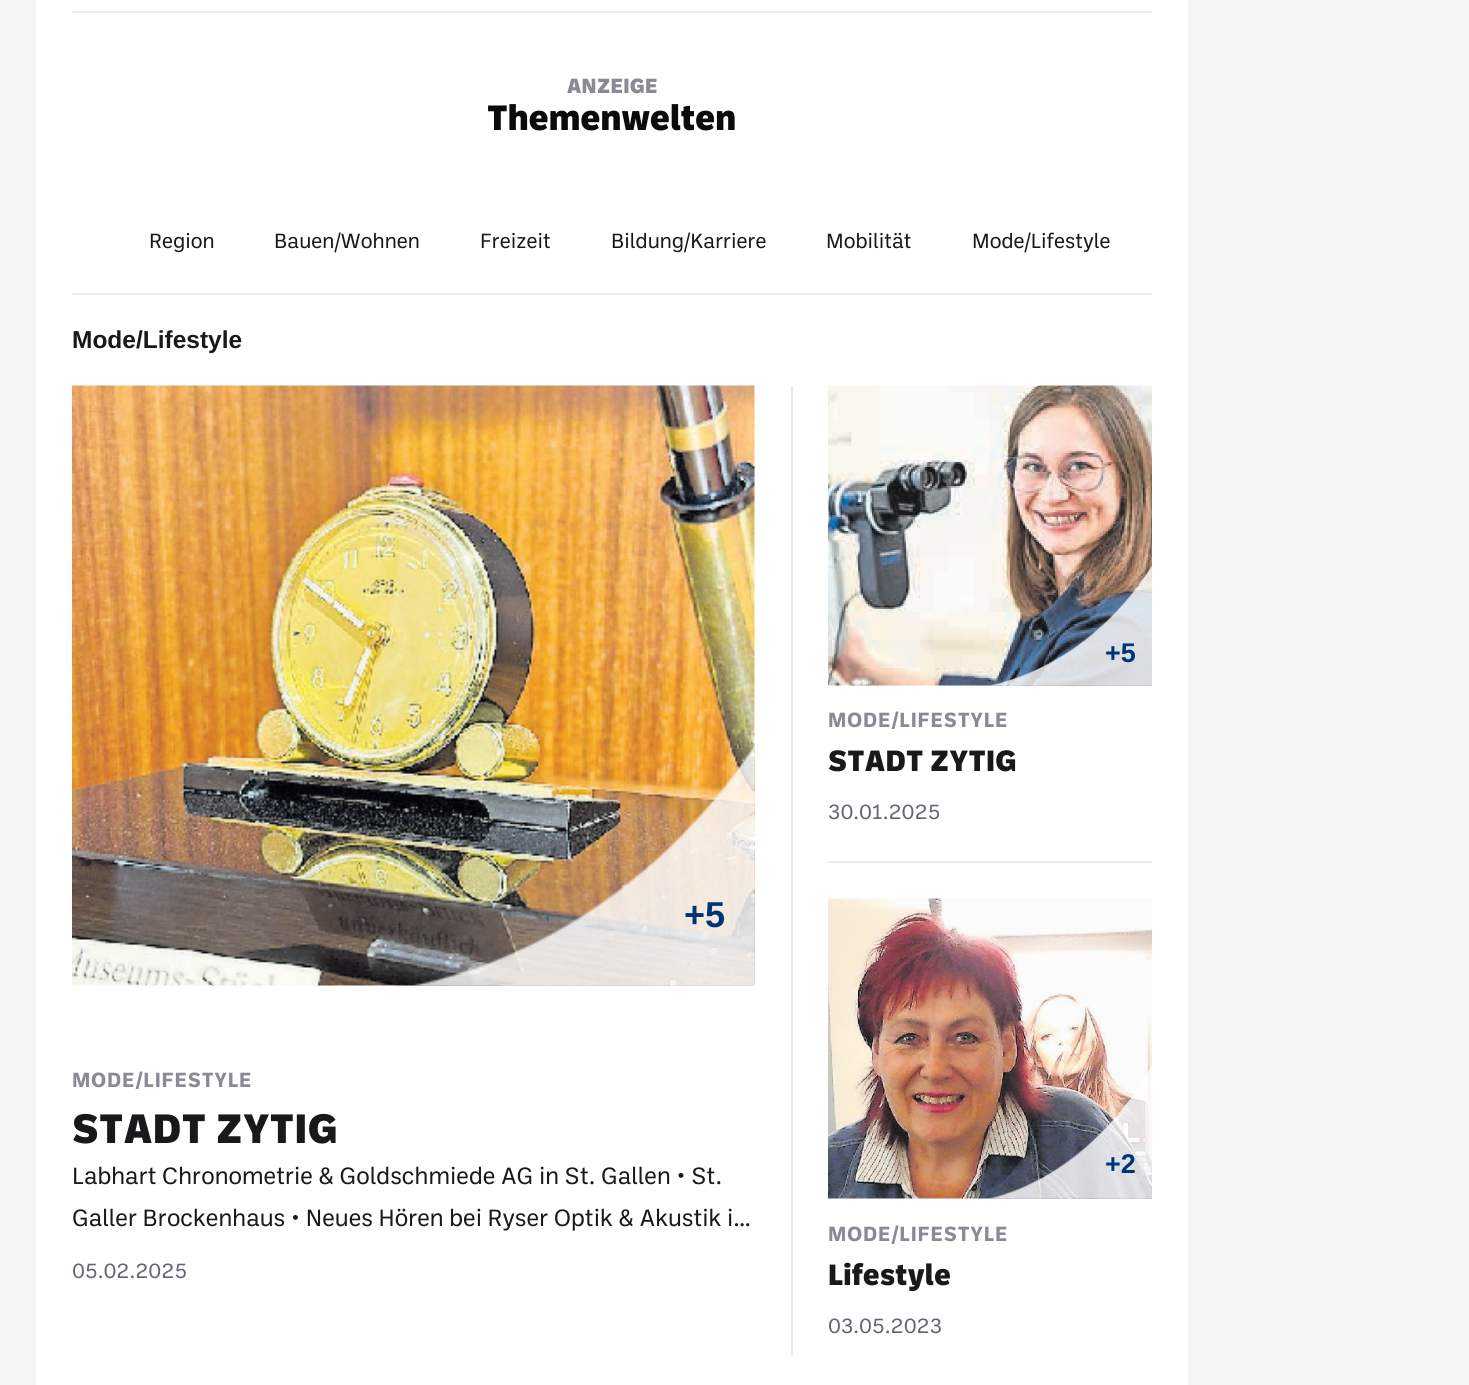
import math
import cairocffi as cairo

surface = cairo.ImageSurface(cairo.FORMAT_RGB24, 1469, 1385)
ctx = cairo.Context(surface)
options = cairo.FontOptions()
options.set_hint_metrics(cairo.HINT_METRICS_OFF)
options.set_hint_style(cairo.HINT_STYLE_NONE)
ctx.set_font_options(options)
ctx.set_miter_limit(4)


def rgb(r, g, b):
    ctx.set_source_rgb(r / 255, g / 255, b / 255)


def face(family, size, italic, bold):
    ctx.select_font_face(family, cairo.FONT_SLANT_ITALIC if italic else cairo.FONT_SLANT_NORMAL, cairo.FONT_WEIGHT_BOLD if bold else cairo.FONT_WEIGHT_NORMAL)
    ctx.set_font_size(size)


def label(x, y, s):
    ctx.move_to(x, y)
    ctx.show_text(s)


def tracked(x, y, s, letter, word):
    ctx.move_to(x, y)
    for ch in s:
        ctx.show_text(ch)
        ctx.rel_move_to(letter + word * (ch == ' '), 0)


def rect(x, y, w, h):
    ctx.rectangle(x, y, w, h)
    ctx.fill()


def image(path, x, y, w, h):
    ctx.save()
    ctx.set_source_surface(cairo.ImageSurface.create_from_png(path), x, y)
    ctx.rectangle(x, y, w, h)
    ctx.fill()
    ctx.restore()


rgb(245, 245, 245)
ctx.paint()
rgb(255, 255, 255)
rect(36, 0, 1152, 1385)
rgb(236, 238, 241)
rect(72, 11, 1080, 2)
face('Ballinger', 21, 0, 1)
rgb(136, 139, 149)
tracked(567, 93, 'ANZEIGE', 0.25, 0)
face('Ballinger', 36, 0, 1)
rgb(11, 11, 11)
label(487, 130, 'Themenwelten')
rgb(237, 237, 237)
rect(72, 293, 1080, 2)
face('Ballinger', 21, 0, 0)
rgb(24, 25, 27)
label(149, 248, 'Region')
label(274, 248, 'Bauen/Wohnen')
label(480, 248, 'Freizeit')
label(611, 248, 'Bildung/Karriere')
label(826, 248, 'Mobilität')
label(972, 248, 'Mode/Lifestyle')
face('Liberation Sans', 24.5, 0, 1)
label(72, 348, 'Mode/Lifestyle')
rgb(233, 233, 238)
rect(791, 386, 2, 970)
image('image0.png', 72, 385, 683, 601)
image('image1.png', 414, 745, 341, 241)
face('Liberation Sans', 36, 0, 1)
rgb(0, 52, 120)
label(684, 927, '+5')
ctx.save()
ctx.rectangle(72, 1070, 683, 19)
ctx.clip()
face('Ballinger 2', 21, 0, 1)
rgb(136, 139, 149)
tracked(72, 1087, 'MODE/LIFESTYLE', 0.8, 0)
ctx.restore()
face('Ballinger', 42, 0, 1)
rgb(24, 25, 27)
tracked(72, 1143, 'STADT ZYTIG', 0.5, 0)
face('Ballinger', 24, 0, 0)
label(72, 1184, 'Labhart Chronometrie & Goldschmiede AG in St. Gallen • St.')
label(72, 1226, 'Galler Brockenhaus • Neues Hören bei Ryser Optik & Akustik i…')
face('Ballinger', 21, 0, 0)
rgb(99, 102, 113)
label(72, 1278, '05.02.2025')
image('image2.png', 828, 385, 324, 301)
image('image3.png', 990, 565, 162, 121)
face('Liberation Sans', 27, 0, 1)
rgb(0, 52, 120)
label(1105, 662, '+5')
ctx.save()
ctx.rectangle(828, 710, 324, 19)
ctx.clip()
face('Ballinger 2', 21, 0, 1)
rgb(136, 139, 149)
tracked(828, 727, 'MODE/LIFESTYLE', 0.8, 0)
ctx.restore()
face('Ballinger', 30, 0, 1)
rgb(24, 25, 27)
tracked(828, 771, 'STADT ZYTIG', 0.25, 0)
face('Ballinger', 21, 0, 0)
rgb(99, 102, 113)
label(828, 819, '30.01.2025')
rgb(233, 233, 238)
rect(828, 861, 324, 2)
image('image4.png', 828, 898, 324, 301)
image('image5.png', 990, 1065, 162, 134)
face('Liberation Sans', 27, 0, 1)
rgb(0, 52, 120)
label(1105, 1173, '+2')
ctx.save()
ctx.rectangle(828, 1223, 324, 21)
ctx.clip()
face('Ballinger 2', 21, 0, 1)
rgb(136, 139, 149)
tracked(828, 1241, 'MODE/LIFESTYLE', 0.8, 0)
ctx.restore()
face('Ballinger', 30, 0, 1)
rgb(24, 25, 27)
tracked(828, 1285, 'Lifestyle', 0.25, 0)
face('Ballinger', 21, 0, 0)
rgb(99, 102, 113)
label(828, 1333, '03.05.2023')
surface.write_to_png('render.png')
